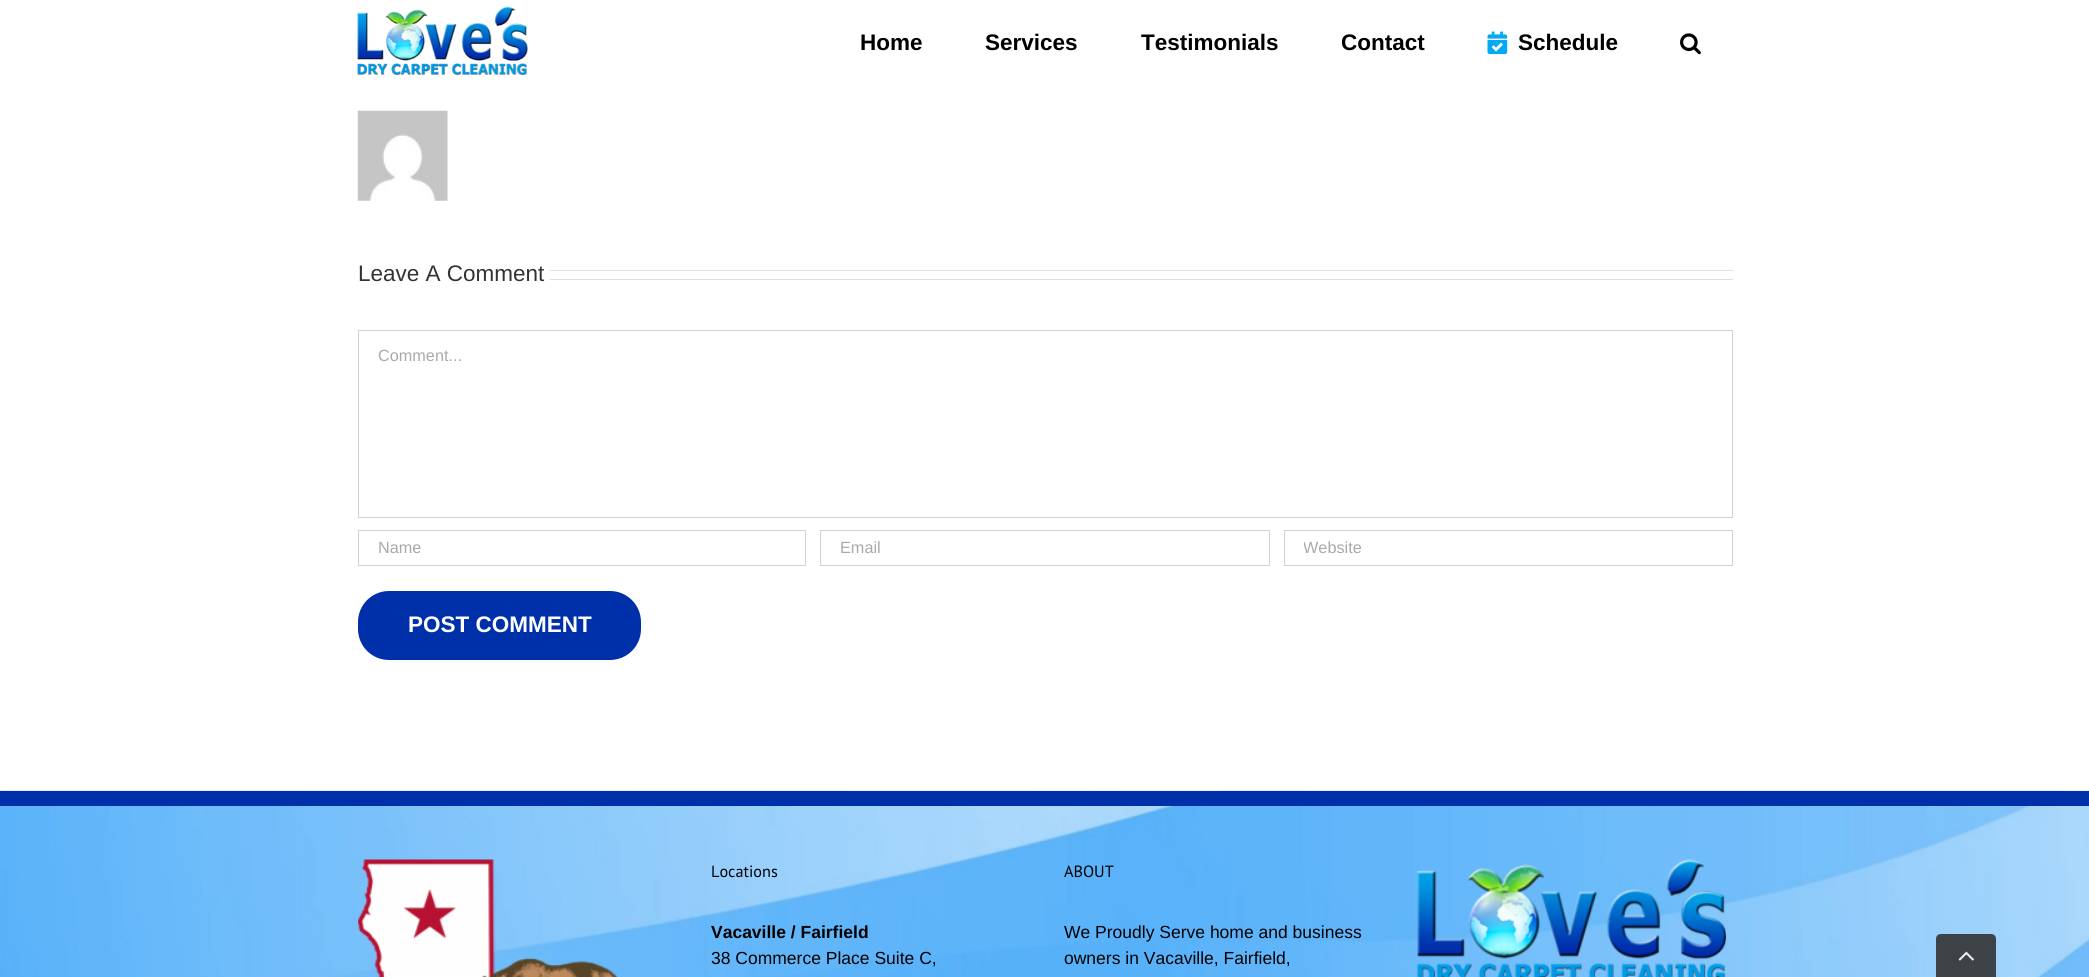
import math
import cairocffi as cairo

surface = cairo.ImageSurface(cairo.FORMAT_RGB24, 2089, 977)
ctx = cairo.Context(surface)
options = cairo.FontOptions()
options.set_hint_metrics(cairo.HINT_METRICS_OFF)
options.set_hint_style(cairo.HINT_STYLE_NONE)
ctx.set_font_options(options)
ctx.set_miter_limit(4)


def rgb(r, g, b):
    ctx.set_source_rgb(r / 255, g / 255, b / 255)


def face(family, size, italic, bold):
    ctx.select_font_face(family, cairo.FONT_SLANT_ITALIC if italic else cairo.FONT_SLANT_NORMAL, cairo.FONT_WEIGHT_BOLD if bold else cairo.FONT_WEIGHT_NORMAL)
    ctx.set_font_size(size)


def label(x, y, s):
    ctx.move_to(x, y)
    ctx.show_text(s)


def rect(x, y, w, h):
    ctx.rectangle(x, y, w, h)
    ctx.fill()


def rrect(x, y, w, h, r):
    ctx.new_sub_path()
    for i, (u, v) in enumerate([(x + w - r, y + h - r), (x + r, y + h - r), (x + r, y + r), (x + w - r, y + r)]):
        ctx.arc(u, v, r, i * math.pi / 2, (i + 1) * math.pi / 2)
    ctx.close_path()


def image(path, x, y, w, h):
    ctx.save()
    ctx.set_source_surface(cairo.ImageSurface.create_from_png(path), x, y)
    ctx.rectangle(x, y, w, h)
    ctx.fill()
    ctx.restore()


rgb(255, 255, 255)
ctx.paint()
image('image0.png', 357, 6, 171, 69)
face('Liberation Sans', 22.5, 0, 1)
rgb(0, 0, 0)
label(860, 50, 'Home')
label(985, 50, 'Services')
label(1141, 50, 'Testimonials')
label(1341, 50, 'Contact')
image('image1.png', 1487, 31, 21, 24)
label(1518, 50, 'Schedule')
image('image2.png', 1680, 33, 21, 22)
image('image3.png', 357, 110, 91, 91)
face('Liberation Sans', 22.5, 0, 0)
rgb(51, 51, 51)
label(358, 281, 'Leave A Comment')
rgb(224, 222, 222)
rect(550, 270, 1183, 1)
rect(550, 279, 1183, 1)
ctx.rectangle(358.5, 330.5, 1374, 187)
rgb(210, 210, 210)
ctx.set_line_width(1)
ctx.stroke()
face('Liberation Sans', 16.25, 0, 0)
rgb(170, 169, 169)
label(378, 361, 'Comment...')
ctx.rectangle(358.5, 530.5, 447, 35)
rgb(210, 210, 210)
ctx.stroke()
rgb(170, 169, 169)
label(378, 553, 'Name')
ctx.rectangle(820.5, 530.5, 449, 35)
rgb(210, 210, 210)
ctx.stroke()
rgb(170, 169, 169)
label(840, 553, 'Email')
ctx.rectangle(1284.5, 530.5, 448, 35)
rgb(210, 210, 210)
ctx.stroke()
ctx.save()
ctx.rectangle(1304, 539, 409, 19)
ctx.clip()
rgb(170, 169, 169)
label(1303, 553, 'Website')
ctx.restore()
rgb(0, 47, 170)
rrect(358, 591, 283, 69, 31)
ctx.fill()
face('Liberation Sans', 22.5, 0, 1)
rgb(255, 255, 255)
label(408, 632, 'POST COMMENT')
image('image4.png', 0, 790, 2089, 187)
rgb(0, 47, 170)
rect(0, 791, 2089, 15)
image('image5.png', 358, 859, 260, 118)
face('PT Sans', 16.25, 0, 0)
rgb(0, 0, 0)
label(711, 877, 'Locations')
face('Liberation Sans', 17.5, 0, 1)
label(711, 938, 'Vacaville / Fairfield')
face('Liberation Sans', 17.5, 0, 0)
label(711, 964, '38 Commerce Place Suite C,')
face('PT Sans', 16.25, 0, 0)
label(1064, 877, 'ABOUT')
face('Liberation Sans', 17.5, 0, 0)
label(1064, 938, 'We Proudly Serve home and business')
label(1064, 964, 'owners in Vacaville, Fairfield,')
image('image6.png', 1417, 859, 309, 118)
ctx.set_source_rgba(0.2, 0.2, 0.2, 0.9)
ctx.new_path()
ctx.move_to(1941, 934)
ctx.line_to(1991, 934)
ctx.curve_to(1994, 934, 1996, 936, 1996, 939)
ctx.line_to(1996, 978)
ctx.line_to(1936, 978)
ctx.line_to(1936, 939)
ctx.curve_to(1936, 936, 1938, 934, 1941, 934)
ctx.close_path()
ctx.fill()
image('image7.png', 1958, 951, 16, 10)
surface.write_to_png('render.png')
